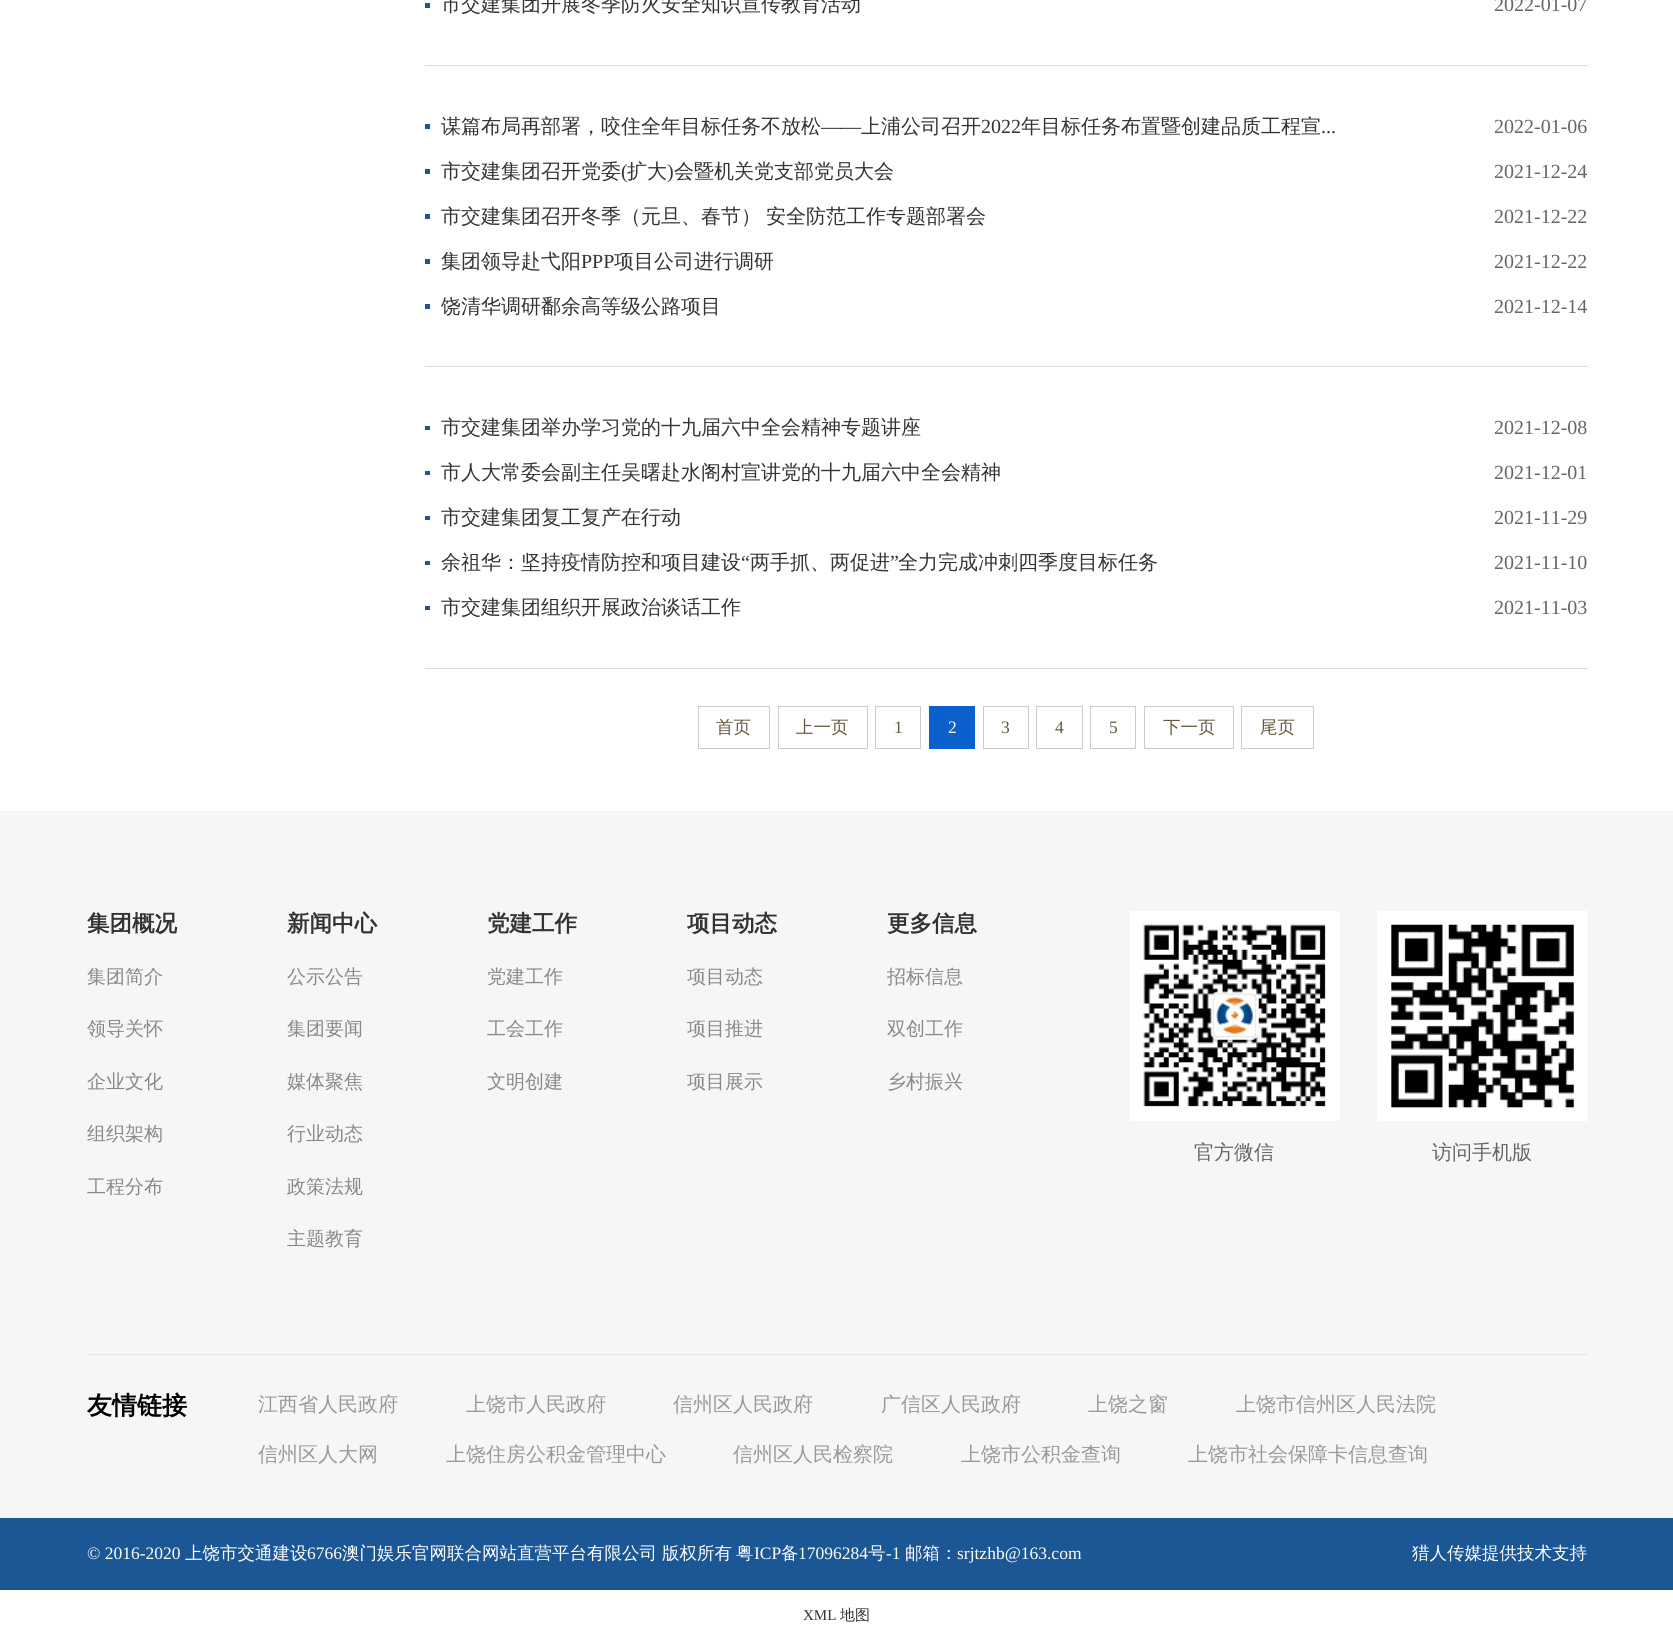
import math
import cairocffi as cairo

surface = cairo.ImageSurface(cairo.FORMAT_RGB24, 1673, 1639)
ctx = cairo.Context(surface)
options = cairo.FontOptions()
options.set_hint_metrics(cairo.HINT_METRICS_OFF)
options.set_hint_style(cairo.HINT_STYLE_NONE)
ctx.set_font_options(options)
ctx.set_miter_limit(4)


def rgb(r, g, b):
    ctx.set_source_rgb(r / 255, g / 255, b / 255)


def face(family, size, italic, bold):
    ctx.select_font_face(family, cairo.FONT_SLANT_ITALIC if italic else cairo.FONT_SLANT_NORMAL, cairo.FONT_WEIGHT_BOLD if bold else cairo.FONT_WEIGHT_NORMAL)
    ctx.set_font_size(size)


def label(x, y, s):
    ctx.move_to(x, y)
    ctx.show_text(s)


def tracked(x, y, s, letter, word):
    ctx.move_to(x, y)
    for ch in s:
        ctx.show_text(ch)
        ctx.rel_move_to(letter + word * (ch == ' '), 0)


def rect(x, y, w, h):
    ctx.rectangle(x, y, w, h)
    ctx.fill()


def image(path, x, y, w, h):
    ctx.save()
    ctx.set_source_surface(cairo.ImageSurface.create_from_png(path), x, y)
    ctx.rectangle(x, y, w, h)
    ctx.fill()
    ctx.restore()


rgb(255, 255, 255)
ctx.paint()
rgb(28, 86, 149)
rect(425, 3, 5, 5)
face('WenQuanYi Zen Hei Medium', 20, 0, 0)
rgb(51, 51, 51)
label(441, 11, '市交建集团开展冬季防火安全知识宣传教育活动')
face('Liberation Serif', 20, 0, 0)
rgb(102, 102, 102)
label(1494, 11, '2022-01-07')
rgb(221, 221, 221)
rect(425, 65, 1163, 1)
rgb(28, 86, 149)
rect(425, 124, 5, 5)
face('WenQuanYi Zen Hei Medium', 20, 0, 0)
rgb(51, 51, 51)
label(441, 133, '谋篇布局再部署，咬住全年目标任务不放松')
face('Liberation Serif', 20, 0, 0)
label(821, 133, '——')
face('WenQuanYi Zen Hei Medium', 20, 0, 0)
label(861, 133, '上浦公司召开')
face('Liberation Serif', 20, 0, 0)
label(981, 133, '2022')
face('WenQuanYi Zen Hei Medium', 20, 0, 0)
label(1021, 133, '年目标任务布置暨创建品质工程宣')
face('Liberation Serif', 20, 0, 0)
rgb(102, 102, 102)
label(1494, 133, '2022-01-06')
rgb(51, 51, 51)
label(1321, 133, '...')
rgb(28, 86, 149)
rect(425, 169, 5, 5)
face('WenQuanYi Zen Hei Medium', 20, 0, 0)
rgb(51, 51, 51)
label(441, 178, '市交建集团召开党委')
face('Liberation Serif', 20, 0, 0)
label(621, 178, '(')
face('WenQuanYi Zen Hei Medium', 20, 0, 0)
label(627, 178, '扩大')
face('Liberation Serif', 20, 0, 0)
label(667, 178, ')')
face('WenQuanYi Zen Hei Medium', 20, 0, 0)
label(674, 178, '会暨机关党支部党员大会')
face('Liberation Serif', 20, 0, 0)
rgb(102, 102, 102)
label(1494, 178, '2021-12-24')
rgb(28, 86, 149)
rect(425, 214, 5, 5)
face('WenQuanYi Zen Hei Medium', 20, 0, 0)
rgb(51, 51, 51)
tracked(441, 223, '市交建集团召开冬季（元旦、春节） 安全防范工作专题部署会', 0, -1)
face('Liberation Serif', 20, 0, 0)
rgb(102, 102, 102)
label(1494, 223, '2021-12-22')
rgb(28, 86, 149)
rect(425, 259, 5, 5)
face('WenQuanYi Zen Hei Medium', 20, 0, 0)
rgb(51, 51, 51)
label(441, 268, '集团领导赴弋阳')
face('Liberation Serif', 20, 0, 0)
label(581, 268, 'PPP')
face('WenQuanYi Zen Hei Medium', 20, 0, 0)
label(614, 268, '项目公司进行调研')
face('Liberation Serif', 20, 0, 0)
rgb(102, 102, 102)
label(1494, 268, '2021-12-22')
rgb(28, 86, 149)
rect(425, 304, 5, 5)
face('WenQuanYi Zen Hei Medium', 20, 0, 0)
rgb(51, 51, 51)
label(441, 313, '饶清华调研鄱余高等级公路项目')
face('Liberation Serif', 20, 0, 0)
rgb(102, 102, 102)
label(1494, 313, '2021-12-14')
rgb(221, 221, 221)
rect(425, 366, 1163, 1)
rgb(28, 86, 149)
rect(425, 426, 5, 4)
face('WenQuanYi Zen Hei Medium', 20, 0, 0)
rgb(51, 51, 51)
label(441, 434, '市交建集团举办学习党的十九届六中全会精神专题讲座')
face('Liberation Serif', 20, 0, 0)
rgb(102, 102, 102)
label(1494, 434, '2021-12-08')
rgb(28, 86, 149)
rect(425, 471, 5, 4)
face('WenQuanYi Zen Hei Medium', 20, 0, 0)
rgb(51, 51, 51)
label(441, 479, '市人大常委会副主任吴曙赴水阁村宣讲党的十九届六中全会精神')
face('Liberation Serif', 20, 0, 0)
rgb(102, 102, 102)
label(1494, 479, '2021-12-01')
rgb(28, 86, 149)
rect(425, 516, 5, 4)
face('WenQuanYi Zen Hei Medium', 20, 0, 0)
rgb(51, 51, 51)
label(441, 524, '市交建集团复工复产在行动')
face('Liberation Serif', 20, 0, 0)
rgb(102, 102, 102)
label(1494, 524, '2021-11-29')
rgb(28, 86, 149)
rect(425, 561, 5, 4)
face('WenQuanYi Zen Hei Medium', 20, 0, 0)
rgb(51, 51, 51)
label(441, 569, '余祖华：坚持疫情防控和项目建设')
face('Liberation Serif', 20, 0, 0)
label(741, 569, '“')
face('WenQuanYi Zen Hei Medium', 20, 0, 0)
label(750, 569, '两手抓、两促进')
face('Liberation Serif', 20, 0, 0)
label(890, 569, '”')
face('WenQuanYi Zen Hei Medium', 20, 0, 0)
label(898, 569, '全力完成冲刺四季度目标任务')
face('Liberation Serif', 20, 0, 0)
rgb(102, 102, 102)
label(1494, 569, '2021-11-10')
rgb(28, 86, 149)
rect(425, 606, 5, 4)
face('WenQuanYi Zen Hei Medium', 20, 0, 0)
rgb(51, 51, 51)
label(441, 614, '市交建集团组织开展政治谈话工作')
face('Liberation Serif', 20, 0, 0)
rgb(102, 102, 102)
label(1494, 614, '2021-11-03')
rgb(221, 221, 221)
rect(425, 668, 1163, 1)
ctx.rectangle(698.5, 706.5, 71, 42)
rgb(204, 204, 204)
ctx.set_line_width(1)
ctx.stroke()
face('WenQuanYi Zen Hei Medium', 17.5, 0, 0)
rgb(102, 88, 60)
label(716, 733, '首页')
ctx.rectangle(778.5, 706.5, 89, 42)
rgb(204, 204, 204)
ctx.stroke()
rgb(102, 88, 60)
label(796, 733, '上一页')
ctx.rectangle(875.5, 706.5, 45, 42)
rgb(204, 204, 204)
ctx.stroke()
face('Liberation Serif', 17.5, 0, 0)
rgb(102, 88, 60)
label(894, 733, '1')
rgb(10, 96, 205)
rect(929, 706, 46, 43)
rgb(255, 255, 255)
label(948, 733, '2')
ctx.rectangle(983.5, 706.5, 45, 42)
rgb(204, 204, 204)
ctx.stroke()
rgb(102, 88, 60)
label(1001, 733, '3')
ctx.rectangle(1036.5, 706.5, 46, 42)
rgb(204, 204, 204)
ctx.stroke()
rgb(102, 88, 60)
label(1055, 733, '4')
ctx.rectangle(1090.5, 706.5, 45, 42)
rgb(204, 204, 204)
ctx.stroke()
rgb(102, 88, 60)
label(1109, 733, '5')
ctx.rectangle(1144.5, 706.5, 89, 42)
rgb(204, 204, 204)
ctx.stroke()
face('WenQuanYi Zen Hei Medium', 17.5, 0, 0)
rgb(102, 88, 60)
label(1163, 733, '下一页')
ctx.rectangle(1241.5, 706.5, 72, 42)
rgb(204, 204, 204)
ctx.stroke()
rgb(102, 88, 60)
label(1260, 733, '尾页')
rgb(246, 246, 246)
rect(0, 811, 1673, 707)
face('WenQuanYi Zen Hei', 22.5, 0, 1)
rgb(51, 51, 51)
label(87, 931, '集团概况')
face('WenQuanYi Zen Hei Medium', 19, 0, 0)
rgb(136, 136, 136)
label(87, 983, '集团简介')
label(87, 1035, '领导关怀')
label(87, 1088, '企业文化')
label(87, 1140, '组织架构')
label(87, 1193, '工程分布')
face('WenQuanYi Zen Hei', 22.5, 0, 1)
rgb(51, 51, 51)
label(287, 931, '新闻中心')
face('WenQuanYi Zen Hei Medium', 19, 0, 0)
rgb(136, 136, 136)
label(287, 983, '公示公告')
label(287, 1035, '集团要闻')
label(287, 1088, '媒体聚焦')
label(287, 1140, '行业动态')
label(287, 1193, '政策法规')
label(287, 1245, '主题教育')
face('WenQuanYi Zen Hei', 22.5, 0, 1)
rgb(51, 51, 51)
label(487, 931, '党建工作')
face('WenQuanYi Zen Hei Medium', 19, 0, 0)
rgb(136, 136, 136)
label(487, 983, '党建工作')
label(487, 1035, '工会工作')
label(487, 1088, '文明创建')
face('WenQuanYi Zen Hei', 22.5, 0, 1)
rgb(51, 51, 51)
label(687, 931, '项目动态')
face('WenQuanYi Zen Hei Medium', 19, 0, 0)
rgb(136, 136, 136)
label(687, 983, '项目动态')
label(687, 1035, '项目推进')
label(687, 1088, '项目展示')
face('WenQuanYi Zen Hei', 22.5, 0, 1)
rgb(51, 51, 51)
label(887, 931, '更多信息')
face('WenQuanYi Zen Hei Medium', 19, 0, 0)
rgb(136, 136, 136)
label(887, 983, '招标信息')
label(887, 1035, '双创工作')
label(887, 1088, '乡村振兴')
image('image0.png', 1130, 911, 210, 210)
face('WenQuanYi Zen Hei Medium', 20, 0, 0)
rgb(102, 102, 102)
label(1194, 1159, '官方微信')
image('image1.png', 1377, 911, 211, 210)
label(1432, 1159, '访问手机版')
rgb(229, 229, 229)
rect(88, 1354, 1500, 1)
face('WenQuanYi Zen Hei', 25, 0, 1)
rgb(0, 0, 0)
label(87, 1414, '友情链接')
face('WenQuanYi Zen Hei Medium', 20, 0, 0)
rgb(153, 153, 153)
label(258, 1411, '江西省人民政府')
label(466, 1411, '上饶市人民政府')
label(673, 1411, '信州区人民政府')
label(881, 1411, '广信区人民政府')
label(1088, 1411, '上饶之窗')
label(1236, 1411, '上饶市信州区人民法院')
label(258, 1461, '信州区人大网')
label(446, 1461, '上饶住房公积金管理中心')
label(733, 1461, '信州区人民检察院')
label(961, 1461, '上饶市公积金查询')
label(1188, 1461, '上饶市社会保障卡信息查询')
rgb(28, 87, 149)
rect(0, 1518, 1673, 72)
face('Liberation Serif', 17.5, 0, 0)
rgb(255, 255, 255)
label(87, 1559, '© 2016-2020')
face('WenQuanYi Zen Hei Medium', 17.5, 0, 0)
label(185, 1559, '上饶市交通建设')
face('Liberation Serif', 17.5, 0, 0)
label(307, 1559, '6766')
face('WenQuanYi Zen Hei Medium', 17.5, 0, 0)
label(342, 1559, '澳门娱乐官网联合网站直营平台有限公司')
label(662, 1559, '版权所有')
label(736, 1559, '粤')
face('Liberation Serif', 17.5, 0, 0)
label(754, 1559, 'ICP')
face('WenQuanYi Zen Hei Medium', 17.5, 0, 0)
label(781, 1559, '备')
face('Liberation Serif', 17.5, 0, 0)
label(798, 1559, '17096284')
face('WenQuanYi Zen Hei Medium', 17.5, 0, 0)
label(868, 1559, '号')
face('Liberation Serif', 17.5, 0, 0)
label(886, 1559, '-1')
face('WenQuanYi Zen Hei Medium', 17.5, 0, 0)
label(905, 1559, '邮箱：')
face('Liberation Serif', 17.5, 0, 0)
label(957, 1559, 'srjtzhb@163.com')
face('WenQuanYi Zen Hei Medium', 17.5, 0, 0)
label(1412, 1559, '猎人传媒提供技术支持')
face('Liberation Serif', 15, 0, 0)
rgb(51, 51, 51)
label(803, 1620, 'XML')
face('WenQuanYi Zen Hei Medium', 15, 0, 0)
label(840, 1620, '地图')
surface.write_to_png('render.png')
